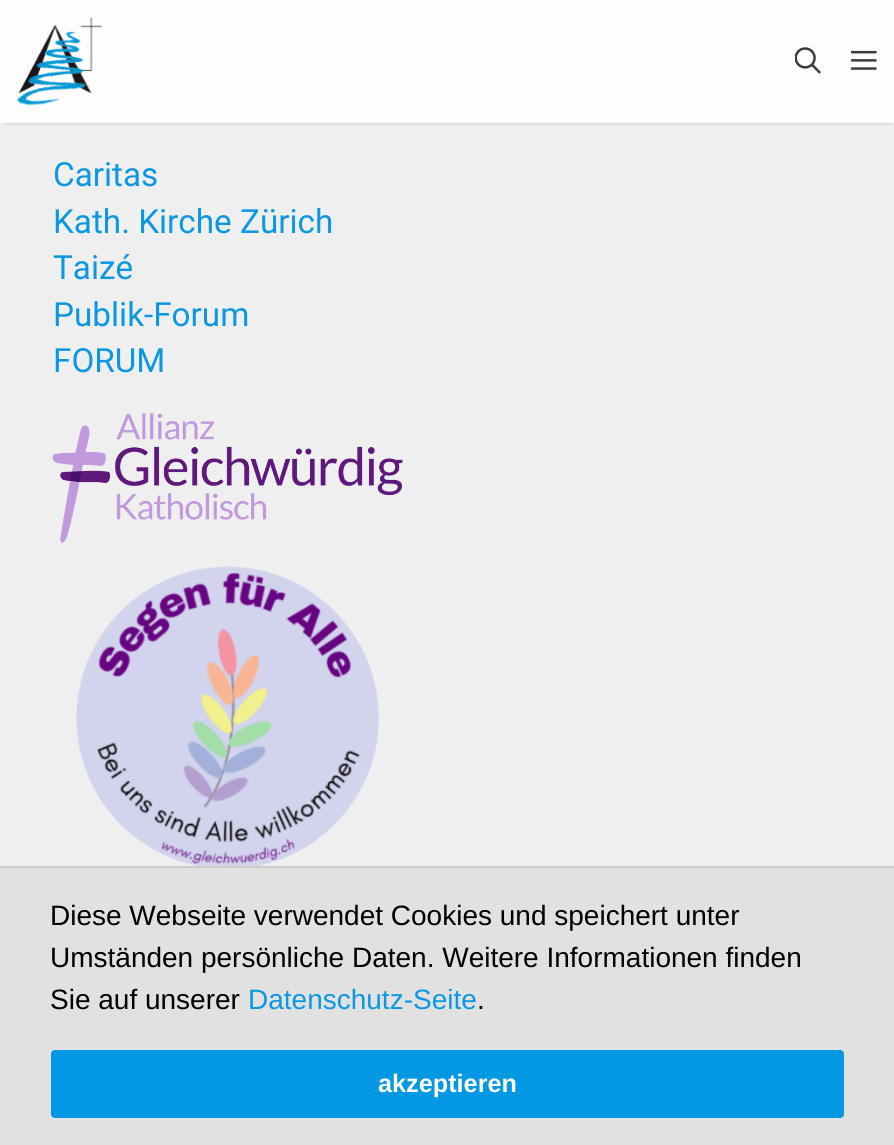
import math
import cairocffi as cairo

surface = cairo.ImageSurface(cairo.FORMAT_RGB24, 894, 1145)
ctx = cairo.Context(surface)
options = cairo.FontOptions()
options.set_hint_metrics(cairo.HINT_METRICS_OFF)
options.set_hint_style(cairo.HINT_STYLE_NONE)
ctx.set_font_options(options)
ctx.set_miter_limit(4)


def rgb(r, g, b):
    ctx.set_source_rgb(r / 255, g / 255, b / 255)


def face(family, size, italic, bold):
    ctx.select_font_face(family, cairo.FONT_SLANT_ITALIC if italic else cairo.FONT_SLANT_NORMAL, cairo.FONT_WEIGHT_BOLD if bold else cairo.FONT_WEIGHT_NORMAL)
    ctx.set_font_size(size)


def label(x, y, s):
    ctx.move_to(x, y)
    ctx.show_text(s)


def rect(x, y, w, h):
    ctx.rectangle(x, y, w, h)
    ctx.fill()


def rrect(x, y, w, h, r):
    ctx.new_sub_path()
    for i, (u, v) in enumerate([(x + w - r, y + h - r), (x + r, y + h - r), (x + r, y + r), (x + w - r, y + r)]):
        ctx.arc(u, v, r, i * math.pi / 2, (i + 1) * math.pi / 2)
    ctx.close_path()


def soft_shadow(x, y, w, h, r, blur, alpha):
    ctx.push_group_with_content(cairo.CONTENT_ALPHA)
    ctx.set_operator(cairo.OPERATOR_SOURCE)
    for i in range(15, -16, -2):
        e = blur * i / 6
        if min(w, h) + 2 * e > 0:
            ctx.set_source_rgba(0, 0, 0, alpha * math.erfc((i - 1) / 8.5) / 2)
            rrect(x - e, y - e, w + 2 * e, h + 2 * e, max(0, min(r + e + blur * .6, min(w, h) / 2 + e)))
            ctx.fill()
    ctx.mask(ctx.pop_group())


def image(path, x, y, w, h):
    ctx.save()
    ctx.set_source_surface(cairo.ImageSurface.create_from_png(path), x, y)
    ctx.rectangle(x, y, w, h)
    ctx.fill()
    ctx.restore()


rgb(239, 239, 239)
ctx.paint()
ctx.save()
ctx.set_fill_rule(cairo.FILL_RULE_EVEN_ODD)
ctx.new_path()
ctx.move_to(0, 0)
ctx.line_to(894, 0)
ctx.line_to(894, 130)
ctx.line_to(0, 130)
ctx.close_path()
ctx.move_to(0, 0)
ctx.line_to(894, 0)
ctx.line_to(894, 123)
ctx.line_to(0, 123)
ctx.close_path()
ctx.clip()
rgb(0, 0, 0)
soft_shadow(4, 7, 887, 116, 0, 2, 0.2)
ctx.restore()
ctx.set_source_rgba(1, 1, 1, 0.9)
rect(0, 0, 894, 123)
image('image0.png', 17, 17, 85, 89)
image('image1.png', 795, 47, 26, 27)
image('image2.png', 851, 50, 26, 20)
face('Roboto', 33.25, 0, 0)
rgb(11, 151, 226)
label(53, 186, 'Caritas')
label(53, 233, 'Kath. Kirche Zürich')
label(53, 279, 'Taizé')
label(53, 326, 'Publik-Forum')
label(53, 372, 'FORUM')
image('image3.png', 52, 413, 351, 130)
image('image4.png', 76, 566, 304, 300)
rgb(225, 225, 225)
rect(0, 868, 894, 277)
rgb(204, 204, 204)
rect(0, 866, 894, 2)
face('Liberation Sans', 28, 0, 0)
rgb(0, 0, 0)
label(50, 925, 'Diese Webseite verwendet Cookies und speichert unter')
label(50, 967, 'Umständen persönliche Daten. Weitere Informationen finden')
label(50, 1009, 'Sie auf unserer')
rgb(11, 151, 226)
label(248, 1009, 'Datenschutz-Seite')
rgb(0, 0, 0)
label(477, 1009, '.')
rgb(0, 152, 226)
rrect(51, 1050, 793, 68, 4)
ctx.fill()
face('Liberation Sans', 25.25, 0, 1)
rgb(255, 255, 255)
label(378, 1092, 'akzeptieren')
surface.write_to_png('render.png')
